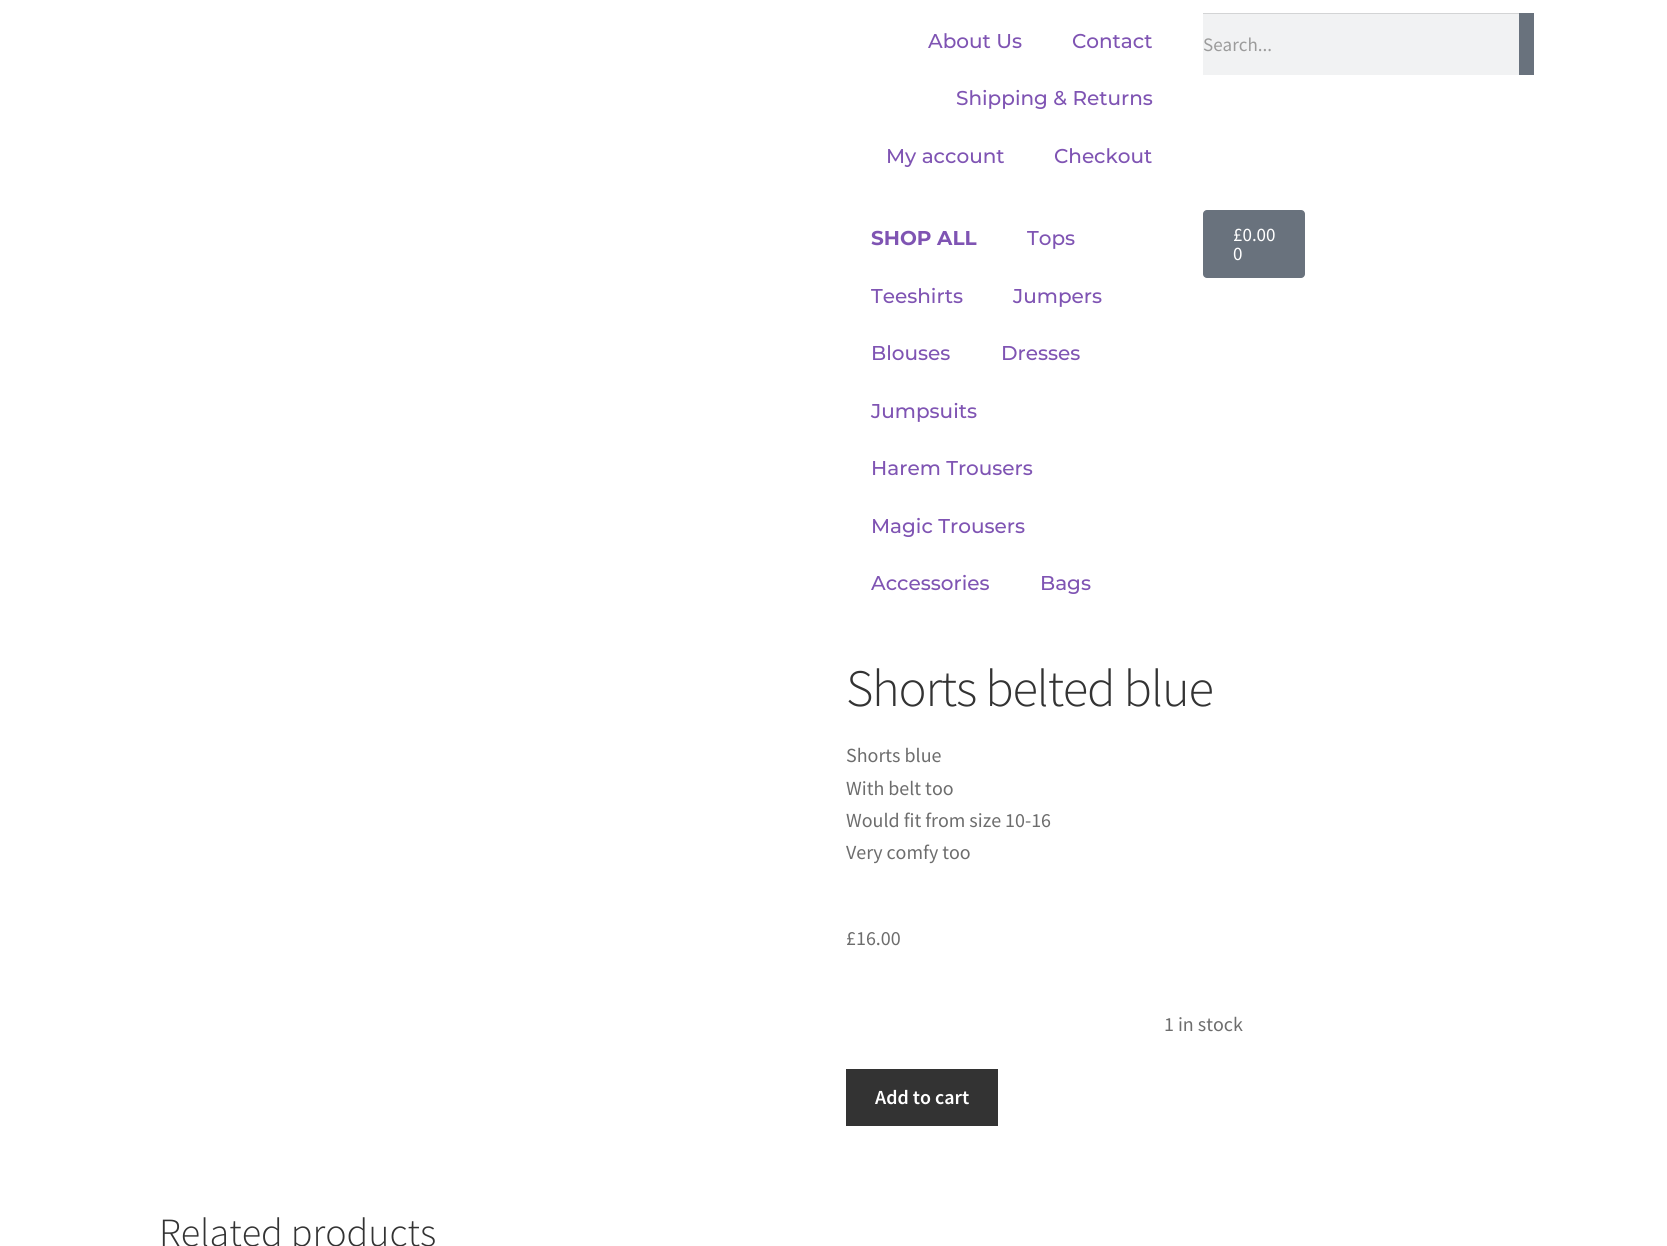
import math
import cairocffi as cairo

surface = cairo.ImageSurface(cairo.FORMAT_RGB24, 1667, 1246)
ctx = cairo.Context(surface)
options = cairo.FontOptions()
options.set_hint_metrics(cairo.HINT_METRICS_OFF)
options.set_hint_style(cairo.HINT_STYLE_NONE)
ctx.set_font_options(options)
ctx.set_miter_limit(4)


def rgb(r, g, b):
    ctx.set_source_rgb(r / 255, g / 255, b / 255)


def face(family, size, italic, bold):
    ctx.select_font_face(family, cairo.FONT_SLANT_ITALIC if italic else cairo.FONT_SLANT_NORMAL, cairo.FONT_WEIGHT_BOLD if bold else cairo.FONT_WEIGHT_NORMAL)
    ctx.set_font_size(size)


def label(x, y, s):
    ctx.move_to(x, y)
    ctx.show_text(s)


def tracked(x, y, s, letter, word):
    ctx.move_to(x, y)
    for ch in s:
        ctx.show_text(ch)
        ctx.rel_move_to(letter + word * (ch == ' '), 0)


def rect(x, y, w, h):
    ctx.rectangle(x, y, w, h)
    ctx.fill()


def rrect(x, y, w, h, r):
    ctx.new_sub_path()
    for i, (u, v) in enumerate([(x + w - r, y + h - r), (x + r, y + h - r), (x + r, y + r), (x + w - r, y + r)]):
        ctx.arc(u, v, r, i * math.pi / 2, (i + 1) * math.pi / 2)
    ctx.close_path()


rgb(255, 255, 255)
ctx.paint()
face('Montserrat Medium', 20, 0, 0)
rgb(127, 84, 179)
label(928, 48, 'About Us')
label(1072, 48, 'Contact')
label(956, 105, 'Shipping & Returns')
label(886, 163, 'My account')
label(1054, 163, 'Checkout')
rgb(241, 242, 243)
rect(1203, 14, 316, 61)
rgb(211, 212, 213)
rect(1203, 13, 316, 1)
face('Source Sans Pro', 19, 0, 0)
rgb(155, 155, 155)
label(1203, 51, 'Search...')
rgb(105, 114, 125)
rect(1519, 13, 15, 62)
face('Montserrat', 20, 0, 1)
rgb(127, 84, 179)
label(871, 245, 'SHOP ALL')
face('Montserrat Medium', 20, 0, 0)
label(1027, 245, 'Tops')
label(871, 303, 'Teeshirts')
label(1013, 303, 'Jumpers')
label(871, 360, 'Blouses')
label(1001, 360, 'Dresses')
label(871, 418, 'Jumpsuits')
label(871, 475, 'Harem Trousers')
label(871, 533, 'Magic Trousers')
label(871, 590, 'Accessories')
label(1040, 590, 'Bags')
rgb(105, 114, 125)
rrect(1203, 210, 102, 68, 4)
ctx.fill()
face('Source Sans Pro', 19, 0, 0)
rgb(255, 255, 255)
label(1233, 241, '£0.00')
label(1233, 260, '0')
face('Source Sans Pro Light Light', 52.5, 0, 0)
rgb(51, 51, 51)
tracked(846, 706, 'Shorts belted blue', -1.25, 0)
face('Source Sans Pro', 20, 0, 0)
rgb(109, 109, 109)
label(846, 762, 'Shorts blue')
label(846, 795, 'With belt too')
label(846, 827, 'Would fit from size 10-16')
label(846, 859, 'Very comfy too')
label(846, 945, '£16.00')
label(1164, 1031, '1 in stock')
rgb(51, 51, 51)
rect(846, 1069, 152, 57)
face('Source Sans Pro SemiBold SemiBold', 20, 0, 0)
rgb(255, 255, 255)
label(875, 1104, 'Add to cart')
face('Source Sans Pro Light Light', 40, 0, 0)
rgb(51, 51, 51)
label(159, 1246, 'Related products')
surface.write_to_png('render.png')
